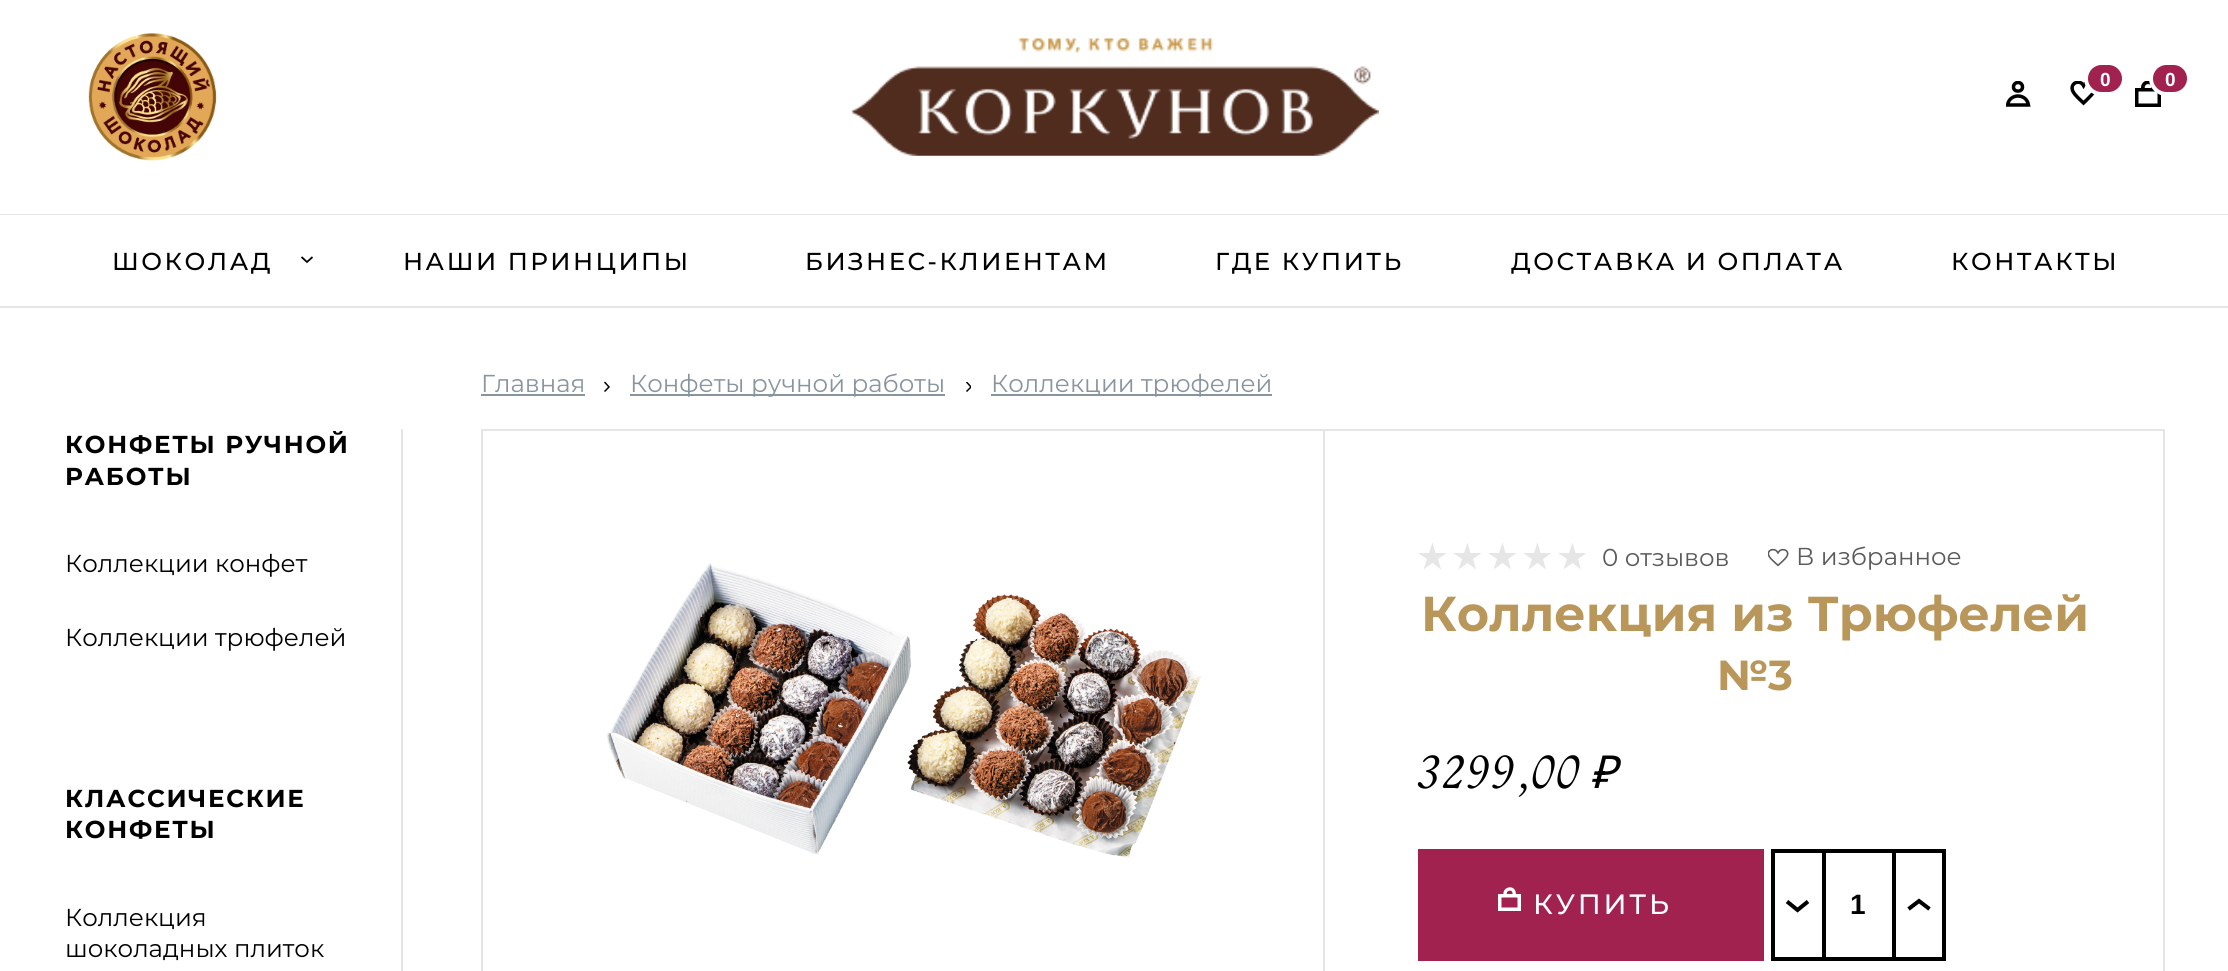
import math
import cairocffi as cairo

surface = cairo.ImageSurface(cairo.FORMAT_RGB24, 2228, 971)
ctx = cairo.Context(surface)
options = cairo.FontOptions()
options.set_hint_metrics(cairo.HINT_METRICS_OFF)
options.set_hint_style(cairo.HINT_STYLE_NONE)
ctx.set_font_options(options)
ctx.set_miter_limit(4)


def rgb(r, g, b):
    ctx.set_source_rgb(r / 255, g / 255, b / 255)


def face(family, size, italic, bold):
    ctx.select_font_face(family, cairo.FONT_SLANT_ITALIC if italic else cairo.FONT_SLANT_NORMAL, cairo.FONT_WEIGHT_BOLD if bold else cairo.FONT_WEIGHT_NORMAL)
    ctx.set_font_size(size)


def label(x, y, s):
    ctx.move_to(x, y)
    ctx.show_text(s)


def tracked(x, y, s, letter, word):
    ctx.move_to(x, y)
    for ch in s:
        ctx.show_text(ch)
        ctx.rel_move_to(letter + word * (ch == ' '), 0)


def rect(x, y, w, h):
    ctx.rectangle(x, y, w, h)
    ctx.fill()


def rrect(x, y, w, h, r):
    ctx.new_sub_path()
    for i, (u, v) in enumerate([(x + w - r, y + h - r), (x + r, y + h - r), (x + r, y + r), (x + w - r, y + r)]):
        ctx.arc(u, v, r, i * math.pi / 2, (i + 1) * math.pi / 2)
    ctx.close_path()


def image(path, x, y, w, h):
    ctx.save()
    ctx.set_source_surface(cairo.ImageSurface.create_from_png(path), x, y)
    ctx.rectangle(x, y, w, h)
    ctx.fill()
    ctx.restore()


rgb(255, 255, 255)
ctx.paint()
rgb(229, 229, 229)
rect(0, 214, 2228, 1)
image('image0.png', 88, 33, 129, 128)
image('image1.png', 851, 38, 528, 118)
ctx.save()
ctx.rectangle(2070, 81, 27, 26)
ctx.clip()
ctx.new_path()
ctx.move_to(2089, 82.5)
ctx.curve_to(2086.5, 82.5, 2084.5, 83.5, 2083.5, 85.5)
ctx.curve_to(2079.5, 78.5, 2069, 83.5, 2073, 91.5)
ctx.curve_to(2075.5, 96, 2080, 99.5, 2083.5, 103)
ctx.curve_to(2089.5, 97, 2095, 92.5, 2095, 88)
ctx.curve_to(2095, 84.5, 2092, 82.5, 2089, 82.5)
ctx.close_path()
rgb(0, 0, 0)
ctx.set_line_width(3.5)
ctx.stroke()
ctx.restore()
rgb(161, 34, 78)
rrect(2086, 63, 38, 31, 15.5)
ctx.fill_preserve()
rgb(255, 255, 255)
ctx.set_line_width(4)
ctx.stroke()
face('Liberation Sans', 19, 0, 1)
label(2100, 86, '0')
ctx.rectangle(2136.75, 89.75, 22.5, 15.5)
rgb(0, 0, 0)
ctx.set_line_width(3.5)
ctx.stroke()
ctx.save()
ctx.rectangle(2135, 81, 26, 26)
ctx.clip()
ctx.new_path()
ctx.move_to(2153.5, 90)
ctx.line_to(2153, 85.5)
ctx.curve_to(2151.5, 81.5, 2145.5, 81, 2143.5, 85)
ctx.curve_to(2142.5, 86.5, 2143, 88.5, 2143, 90)
ctx.set_line_width(3.7)
ctx.stroke()
ctx.restore()
rgb(161, 34, 78)
rrect(2151, 63, 38, 31, 15.5)
ctx.fill_preserve()
rgb(255, 255, 255)
ctx.set_line_width(4)
ctx.stroke()
label(2165, 86, '0')
ctx.save()
ctx.rectangle(2006, 81, 26, 26)
ctx.clip()
ctx.new_path()
ctx.move_to(2028.5, 105)
ctx.line_to(2007.5, 105)
ctx.curve_to(2009.5, 93, 2026.5, 93, 2028.5, 105)
ctx.close_path()
ctx.move_to(2022.5, 87)
ctx.curve_to(2022.5, 92.5, 2013.5, 92.5, 2013.5, 87)
ctx.curve_to(2013.5, 81, 2022.5, 81, 2022.5, 87)
ctx.close_path()
rgb(0, 0, 0)
ctx.set_line_width(3.5)
ctx.stroke()
ctx.restore()
face('Montserrat Medium', 24.5, 0, 0)
rgb(0, 0, 0)
tracked(112, 270, 'ШОКОЛАД', 2.5, 0)
ctx.new_path()
ctx.move_to(312.5, 257)
ctx.line_to(307, 262)
ctx.line_to(301.5, 257)
ctx.set_line_width(1.8)
ctx.stroke()
tracked(403, 270, 'НАШИ ПРИНЦИПЫ', 2.5, 0)
tracked(805, 270, 'БИЗНЕС-КЛИЕНТАМ', 2.5, 0)
tracked(1215, 270, 'ГДЕ КУПИТЬ', 2.5, 0)
tracked(1511, 270, 'ДОСТАВКА И ОПЛАТА', 2.5, 0)
tracked(1951, 270, 'КОНТАКТЫ', 2.5, 0)
rgb(229, 229, 229)
rect(0, 306, 2228, 2)
face('Montserrat', 24.5, 0, 1)
rgb(0, 0, 0)
tracked(65, 453, 'КОНФЕТЫ РУЧНОЙ', 1.75, 0)
tracked(65, 485, 'РАБОТЫ', 1.75, 0)
face('Montserrat', 24.5, 0, 0)
label(65, 572, 'Коллекции конфет')
label(65, 646, 'Коллекции трюфелей')
face('Montserrat', 24.5, 0, 1)
tracked(65, 807, 'КЛАССИЧЕСКИЕ', 1.75, 0)
tracked(65, 838, 'КОНФЕТЫ', 1.75, 0)
face('Montserrat', 24.5, 0, 0)
label(65, 926, 'Коллекция')
label(65, 957, 'шоколадных плиток')
rgb(229, 229, 229)
rect(401, 429, 2, 542)
rgb(137, 149, 158)
label(481, 392, 'Главная')
rect(481, 394, 104, 2)
ctx.new_path()
ctx.move_to(604.5, 382)
ctx.line_to(609, 387)
ctx.line_to(604.5, 391.5)
rgb(0, 0, 0)
ctx.set_line_width(1.5)
ctx.stroke()
rgb(137, 149, 158)
rect(630, 394, 315, 2)
label(630, 392, 'Конфеты ручной работы')
ctx.save()
ctx.rectangle(966, 382, 5, 10)
ctx.clip()
ctx.new_path()
ctx.move_to(966.5, 382)
ctx.line_to(971, 387)
ctx.line_to(966.5, 391.5)
rgb(0, 0, 0)
ctx.stroke()
ctx.restore()
rect(991, 394, 281, 2)
label(991, 392, 'Коллекции трюфелей')
rgb(229, 229, 229)
rect(481, 429, 842, 2)
rect(481, 429, 2, 542)
image('image2.png', 607, 563, 594, 294)
ctx.rectangle(1324, 430, 840, 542)
ctx.set_line_width(2)
ctx.stroke()
rgb(230, 230, 230)
ctx.new_path()
ctx.move_to(1432.5, 542.5)
ctx.line_to(1435.5, 553)
ctx.line_to(1446.5, 553)
ctx.line_to(1438, 559)
ctx.line_to(1441, 569.5)
ctx.line_to(1432.5, 563)
ctx.line_to(1423.5, 569.5)
ctx.line_to(1427, 559)
ctx.line_to(1418, 553)
ctx.line_to(1429, 553)
ctx.close_path()
ctx.fill()
ctx.new_path()
ctx.move_to(1467.5, 542.5)
ctx.line_to(1470.5, 553)
ctx.line_to(1481.5, 553)
ctx.line_to(1473, 559)
ctx.line_to(1476, 569.5)
ctx.line_to(1467.5, 563)
ctx.line_to(1458.5, 569.5)
ctx.line_to(1462, 559)
ctx.line_to(1453, 553)
ctx.line_to(1464, 553)
ctx.close_path()
ctx.fill()
ctx.new_path()
ctx.move_to(1502.5, 542.5)
ctx.line_to(1505.5, 553)
ctx.line_to(1516.5, 553)
ctx.line_to(1508, 559)
ctx.line_to(1511, 569.5)
ctx.line_to(1502.5, 563)
ctx.line_to(1493.5, 569.5)
ctx.line_to(1497, 559)
ctx.line_to(1488, 553)
ctx.line_to(1499, 553)
ctx.close_path()
ctx.fill()
ctx.new_path()
ctx.move_to(1537.5, 542.5)
ctx.line_to(1540.5, 553)
ctx.line_to(1551.5, 553)
ctx.line_to(1543, 559)
ctx.line_to(1546, 569.5)
ctx.line_to(1537.5, 563)
ctx.line_to(1528.5, 569.5)
ctx.line_to(1532, 559)
ctx.line_to(1523, 553)
ctx.line_to(1534, 553)
ctx.close_path()
ctx.fill()
ctx.new_path()
ctx.move_to(1572.5, 542.5)
ctx.line_to(1575.5, 553)
ctx.line_to(1586.5, 553)
ctx.line_to(1578, 559)
ctx.line_to(1581, 569.5)
ctx.line_to(1572.5, 563)
ctx.line_to(1563.5, 569.5)
ctx.line_to(1567, 559)
ctx.line_to(1558, 553)
ctx.line_to(1569, 553)
ctx.close_path()
ctx.fill()
rgb(91, 91, 91)
label(1602, 566, '0 отзывов')
image('image3.png', 1768, 548, 21, 19)
label(1796, 565, 'В избранное')
face('Montserrat', 49, 0, 1)
rgb(185, 151, 91)
label(1421, 631, 'Коллекция из Трюфелей')
face('Montserrat', 42, 0, 1)
label(1717, 690, '№3')
face('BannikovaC', 45.5, 1, 0)
rgb(0, 0, 0)
label(1417, 788, '3299,00')
face('Noto Sans', 45.5, 1, 0)
label(1590, 788, '₽')
rgb(161, 34, 78)
rect(1418, 849, 346, 112)
ctx.rectangle(1499.75, 895.75, 19.5, 13.5)
rgb(255, 255, 255)
ctx.set_line_width(3.5)
ctx.stroke()
ctx.new_path()
ctx.move_to(1514.5, 896)
ctx.line_to(1514, 892)
ctx.curve_to(1513, 888, 1507.5, 888, 1505.5, 891.5)
ctx.curve_to(1505, 892.5, 1505, 894.5, 1505, 896)
ctx.set_line_width(3.3)
ctx.stroke()
face('Montserrat Medium', 28, 0, 0)
tracked(1533, 914, 'КУПИТЬ', 2.75, 0)
ctx.rectangle(1773, 851, 171, 108)
rgb(0, 0, 0)
ctx.set_line_width(4)
ctx.stroke()
ctx.new_path()
ctx.move_to(1787, 901.5)
ctx.line_to(1797.5, 910)
ctx.line_to(1808, 901.5)
ctx.stroke()
rect(1892, 852, 4, 105)
rect(1822, 852, 4, 105)
face('Liberation Sans', 28, 0, 1)
label(1850, 914, '1')
ctx.new_path()
ctx.move_to(1929.5, 909)
ctx.line_to(1919, 901)
ctx.line_to(1908.5, 909)
ctx.stroke()
surface.write_to_png('render.png')
